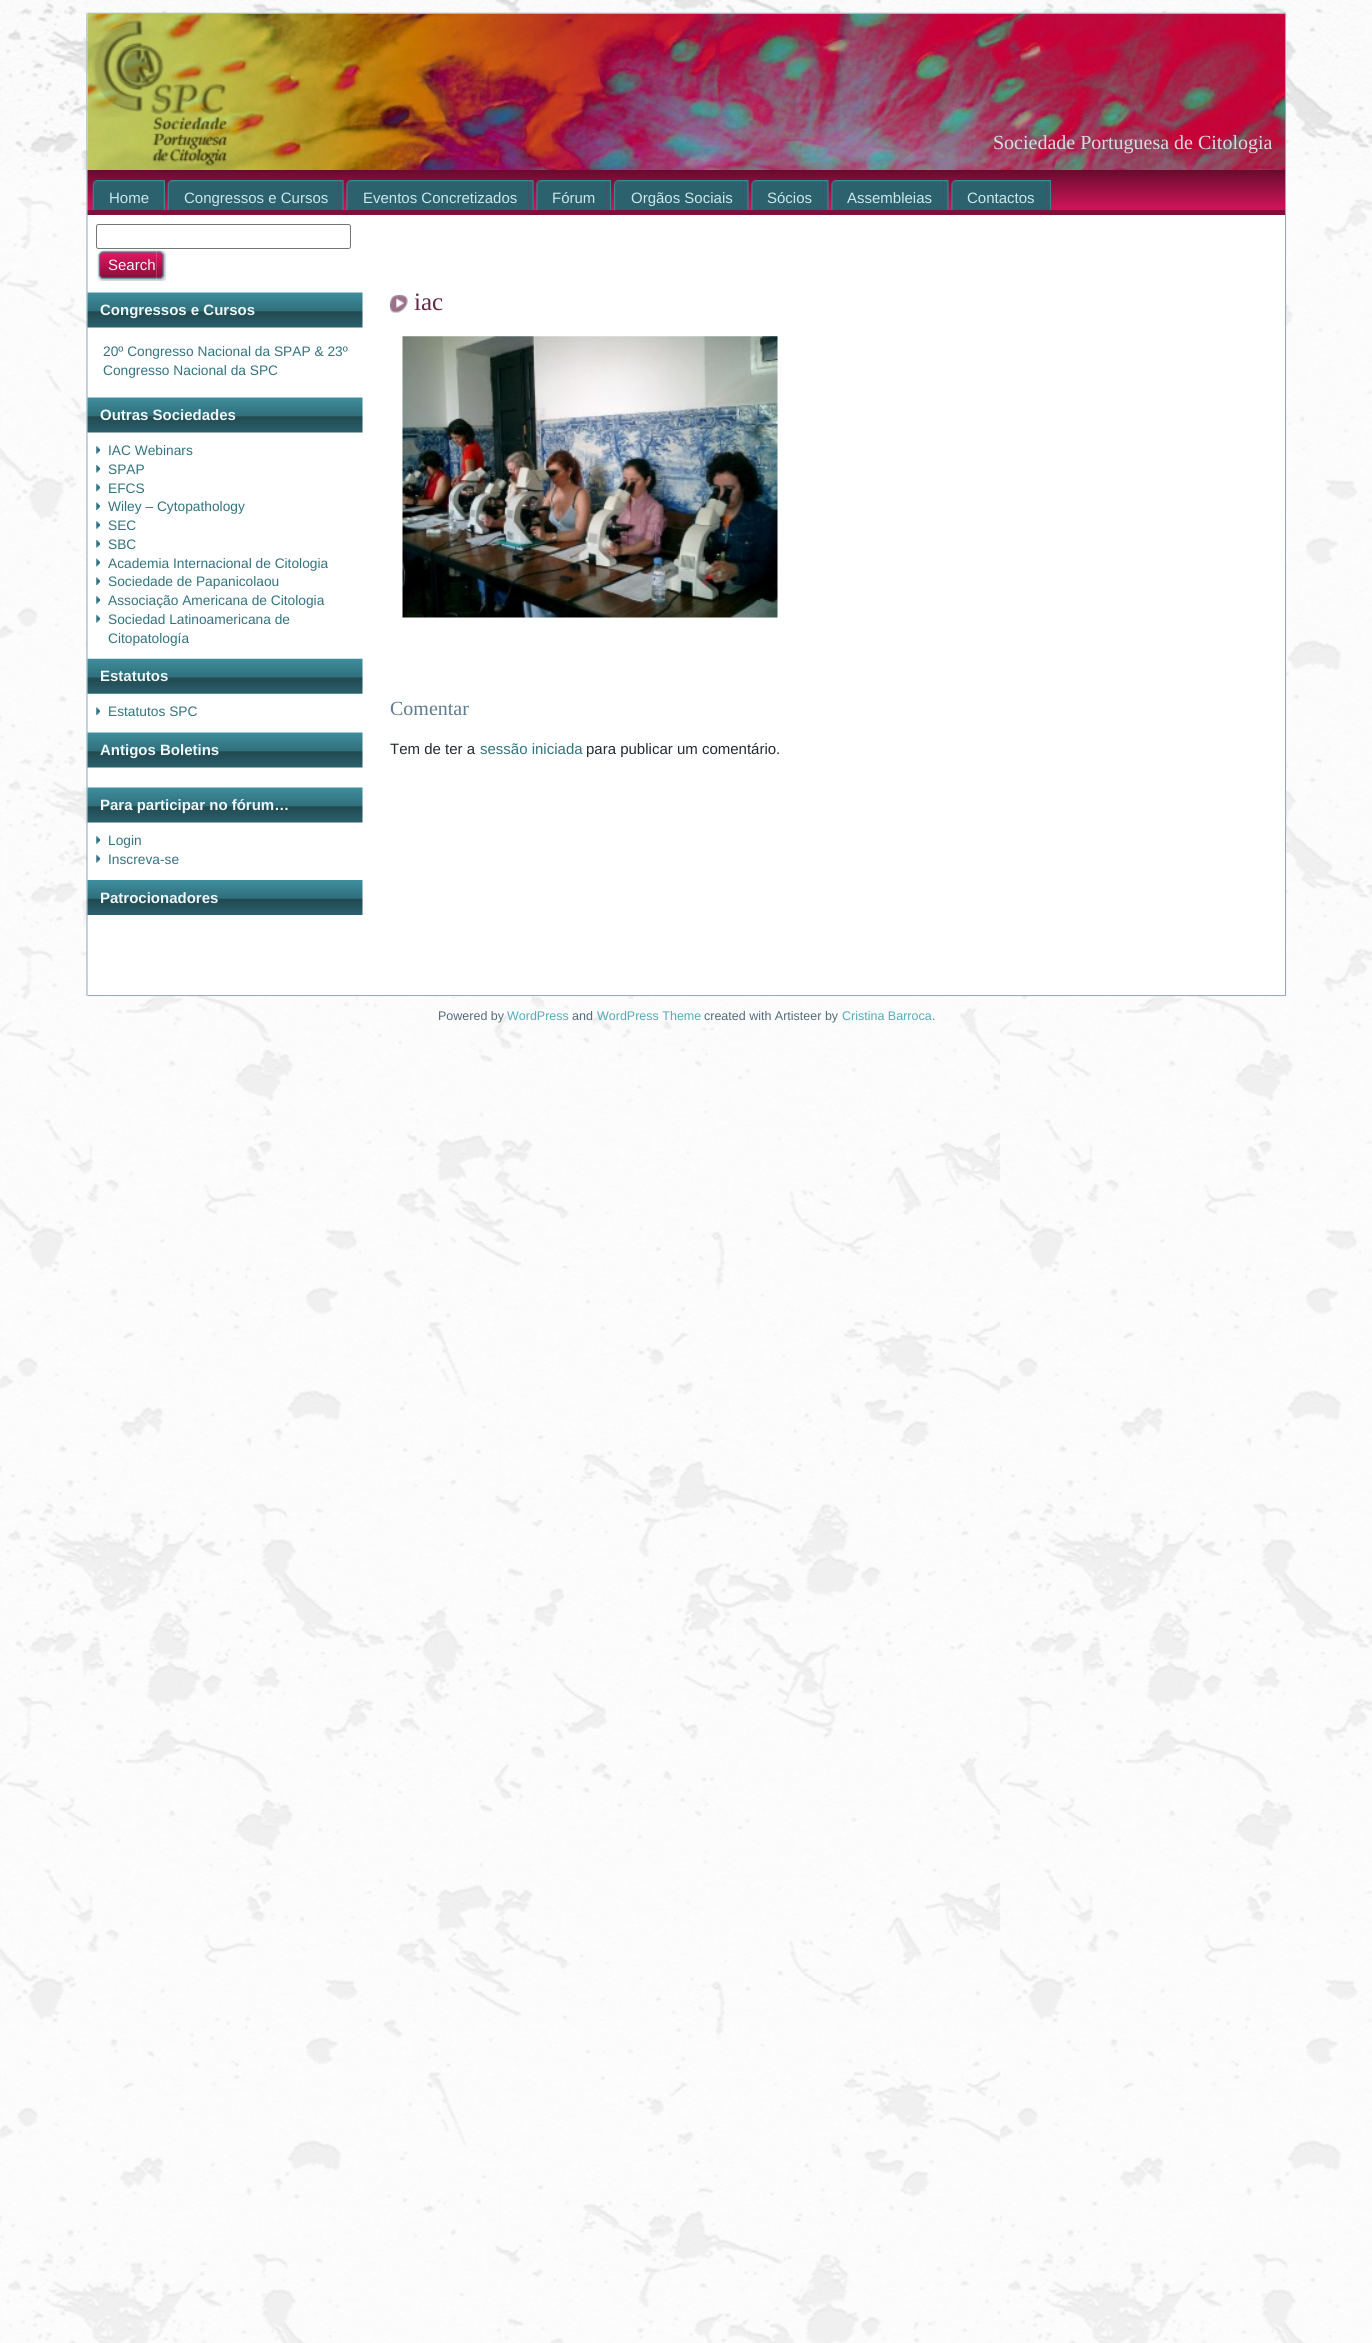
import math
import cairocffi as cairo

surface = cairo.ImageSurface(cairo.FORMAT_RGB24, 1372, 2343)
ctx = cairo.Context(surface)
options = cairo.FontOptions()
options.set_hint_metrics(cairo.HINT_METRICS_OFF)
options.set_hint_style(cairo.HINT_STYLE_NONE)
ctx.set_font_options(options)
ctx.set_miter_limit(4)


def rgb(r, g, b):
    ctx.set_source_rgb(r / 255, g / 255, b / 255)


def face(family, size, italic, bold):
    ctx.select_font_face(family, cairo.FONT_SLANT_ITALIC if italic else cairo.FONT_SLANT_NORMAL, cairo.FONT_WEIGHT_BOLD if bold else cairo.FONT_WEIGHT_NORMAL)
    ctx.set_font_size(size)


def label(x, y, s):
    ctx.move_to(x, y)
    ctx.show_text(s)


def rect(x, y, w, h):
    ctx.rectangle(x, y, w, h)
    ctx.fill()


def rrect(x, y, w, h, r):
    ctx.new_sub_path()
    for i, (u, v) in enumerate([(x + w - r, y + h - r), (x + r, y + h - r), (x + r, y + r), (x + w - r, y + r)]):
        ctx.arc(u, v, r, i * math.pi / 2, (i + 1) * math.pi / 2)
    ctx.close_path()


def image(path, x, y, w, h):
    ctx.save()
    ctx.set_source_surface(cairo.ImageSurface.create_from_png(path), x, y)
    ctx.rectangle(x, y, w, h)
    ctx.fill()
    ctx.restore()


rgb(255, 255, 255)
ctx.paint()
image('image0.png', 0, 170, 1372, 2173)
image('image1.png', 0, 0, 1372, 170)
image('image2.png', 86, 12, 2, 2)
image('image3.png', 87, 12, 1198, 2)
image('image4.png', 1285, 12, 2, 2)
image('image5.png', 86, 14, 2, 981)
image('image6.png', 87, 13, 1198, 157)
face('Liberation Serif', 20, 0, 0)
rgb(212, 221, 226)
label(993, 149, 'Sociedade Portuguesa de Citologia')
image('image7.png', 87, 170, 1198, 45)
image('image8.png', 92, 180, 68, 35)
image('image9.png', 160, 180, 5, 35)
face('Liberation Sans', 15, 0, 0)
rgb(204, 230, 235)
label(109, 203, 'Home')
image('image10.png', 167, 180, 172, 35)
image('image11.png', 338, 180, 6, 35)
label(184, 203, 'Congressos e Cursos')
image('image12.png', 346, 180, 183, 35)
image('image11.png', 528, 180, 6, 35)
label(363, 203, 'Eventos Concretizados')
image('image13.png', 536, 180, 71, 35)
image('image14.png', 606, 180, 6, 35)
label(552, 203, 'Fórum')
image('image15.png', 613, 180, 131, 35)
image('image11.png', 743, 180, 6, 35)
label(631, 203, 'Orgãos Sociais')
image('image16.png', 751, 180, 73, 35)
image('image11.png', 823, 180, 6, 35)
label(767, 203, 'Sócios')
image('image17.png', 831, 180, 113, 35)
image('image11.png', 943, 180, 6, 35)
label(847, 203, 'Assembleias')
image('image18.png', 951, 180, 96, 35)
image('image14.png', 1046, 180, 6, 35)
label(967, 203, 'Contactos')
rgb(255, 255, 255)
rect(88, 215, 1197, 780)
rrect(96.5, 224.5, 254, 24, 2)
rgb(118, 118, 118)
ctx.set_line_width(1)
ctx.stroke()
image('image19.png', 97, 249, 60, 32)
image('image20.png', 156, 249, 10, 32)
rgb(237, 246, 248)
label(108, 270, 'Search')
image('image21.png', 87, 292, 276, 36)
face('Liberation Sans', 15, 0, 1)
label(100, 315, 'Congressos e Cursos')
face('Liberation Sans', 13.75, 0, 0)
rgb(51, 115, 128)
label(103, 356, '20º Congresso Nacional da SPAP & 23º')
label(103, 375, 'Congresso Nacional da SPC')
image('image22.png', 87, 397, 276, 36)
face('Liberation Sans', 15, 0, 1)
rgb(237, 246, 248)
label(100, 420, 'Outras Sociedades')
image('image23.png', 96, 446, 4, 8)
face('Liberation Sans', 13.75, 0, 0)
rgb(51, 115, 128)
label(108, 455, 'IAC Webinars')
image('image24.png', 96, 464, 4, 9)
label(108, 474, 'SPAP')
image('image25.png', 96, 483, 4, 9)
label(108, 493, 'EFCS')
image('image26.png', 96, 502, 4, 8)
label(108, 511, 'Wiley – Cytopathology')
image('image23.png', 96, 521, 4, 8)
label(108, 530, 'SEC')
image('image24.png', 96, 539, 4, 9)
label(108, 549, 'SBC')
image('image25.png', 96, 558, 4, 9)
label(108, 568, 'Academia Internacional de Citologia')
image('image26.png', 96, 577, 4, 8)
label(108, 586, 'Sociedade de Papanicolaou')
image('image23.png', 96, 596, 4, 8)
label(108, 605, 'Associação Americana de Citologia')
image('image24.png', 96, 614, 4, 9)
label(108, 624, 'Sociedad Latinoamericana de')
label(108, 643, 'Citopatología')
image('image27.png', 87, 658, 276, 36)
face('Liberation Sans', 15, 0, 1)
rgb(237, 246, 248)
label(100, 681, 'Estatutos')
image('image26.png', 96, 707, 4, 8)
face('Liberation Sans', 13.75, 0, 0)
rgb(51, 115, 128)
label(108, 716, 'Estatutos SPC')
image('image28.png', 87, 732, 276, 36)
face('Liberation Sans', 15, 0, 1)
rgb(237, 246, 248)
label(100, 755, 'Antigos Boletins')
image('image29.png', 87, 787, 276, 36)
label(100, 810, 'Para participar no fórum…')
image('image23.png', 96, 836, 4, 8)
face('Liberation Sans', 13.75, 0, 0)
rgb(51, 115, 128)
label(108, 845, 'Login')
image('image24.png', 96, 854, 4, 9)
label(108, 864, 'Inscreva-se')
image('image30.png', 87, 880, 276, 35)
face('Liberation Sans', 15, 0, 1)
rgb(237, 246, 248)
label(100, 903, 'Patrocionadores')
image('image31.png', 390, 295, 18, 18)
face('Liberation Serif', 25, 0, 0)
rgb(98, 40, 73)
label(414, 310, 'iac')
image('image32.png', 402, 336, 376, 282)
face('Liberation Serif', 20, 0, 0)
rgb(94, 124, 141)
label(390, 715, 'Comentar')
face('Liberation Sans', 15, 0, 0)
rgb(33, 43, 49)
label(390, 754, 'Tem de ter a')
rgb(51, 115, 128)
label(480, 754, 'sessão iniciada')
rgb(33, 43, 49)
label(586, 754, 'para publicar um comentário.')
image('image33.png', 1285, 14, 2, 981)
image('image34.png', 86, 995, 2, 1)
image('image35.png', 87, 995, 1198, 2)
image('image36.png', 1285, 995, 2, 2)
face('Liberation Sans', 12.5, 0, 0)
rgb(82, 107, 122)
label(438, 1020, 'Powered by')
rgb(84, 170, 187)
label(507, 1020, 'WordPress')
rgb(82, 107, 122)
label(572, 1020, 'and')
rgb(84, 170, 187)
label(597, 1020, 'WordPress Theme')
rgb(82, 107, 122)
label(704, 1020, 'created with Artisteer by')
rgb(84, 170, 187)
label(842, 1020, 'Cristina Barroca')
rgb(82, 107, 122)
label(932, 1020, '.')
surface.write_to_png('render.png')
